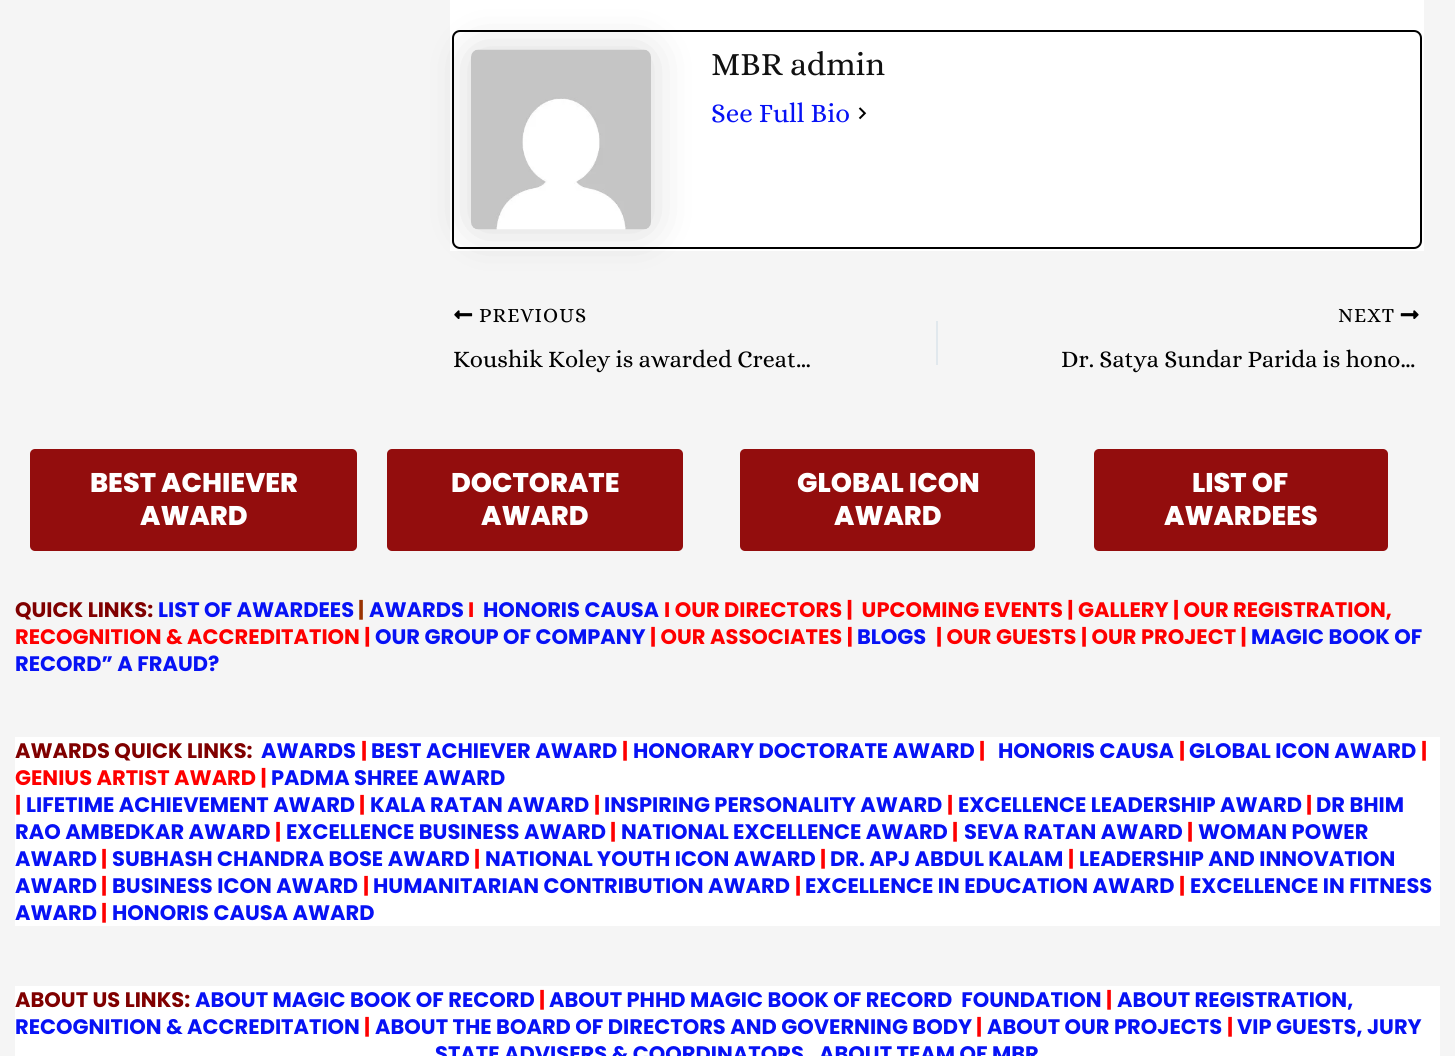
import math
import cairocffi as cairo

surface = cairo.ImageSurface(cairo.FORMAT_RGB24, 1455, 1056)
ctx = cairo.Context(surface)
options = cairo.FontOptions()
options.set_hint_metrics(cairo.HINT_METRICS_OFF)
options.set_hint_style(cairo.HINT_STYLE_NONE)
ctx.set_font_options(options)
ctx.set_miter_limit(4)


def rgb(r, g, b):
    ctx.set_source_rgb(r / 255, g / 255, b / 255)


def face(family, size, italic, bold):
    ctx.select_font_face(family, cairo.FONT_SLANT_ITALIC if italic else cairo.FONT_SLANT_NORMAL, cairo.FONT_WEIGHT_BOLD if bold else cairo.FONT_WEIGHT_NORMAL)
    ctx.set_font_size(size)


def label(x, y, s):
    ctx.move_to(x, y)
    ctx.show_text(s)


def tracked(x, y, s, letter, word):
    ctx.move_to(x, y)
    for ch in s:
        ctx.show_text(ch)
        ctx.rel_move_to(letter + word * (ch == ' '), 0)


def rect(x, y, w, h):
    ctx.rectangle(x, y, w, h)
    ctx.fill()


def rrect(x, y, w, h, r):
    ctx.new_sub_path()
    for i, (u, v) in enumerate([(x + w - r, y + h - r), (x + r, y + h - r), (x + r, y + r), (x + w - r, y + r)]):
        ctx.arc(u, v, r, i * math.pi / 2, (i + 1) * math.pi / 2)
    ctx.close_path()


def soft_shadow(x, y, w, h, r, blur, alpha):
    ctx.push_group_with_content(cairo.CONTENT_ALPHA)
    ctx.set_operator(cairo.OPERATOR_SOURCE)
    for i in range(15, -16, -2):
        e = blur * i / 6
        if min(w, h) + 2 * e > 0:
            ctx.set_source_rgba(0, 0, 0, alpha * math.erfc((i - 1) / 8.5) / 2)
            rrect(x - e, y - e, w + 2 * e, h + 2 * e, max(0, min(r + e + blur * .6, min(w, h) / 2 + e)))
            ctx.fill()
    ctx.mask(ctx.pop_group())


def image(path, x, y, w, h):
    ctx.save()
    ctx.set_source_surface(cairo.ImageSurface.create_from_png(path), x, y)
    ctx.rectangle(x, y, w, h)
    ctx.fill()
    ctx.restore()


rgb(245, 245, 245)
ctx.paint()
rgb(255, 255, 255)
rect(450, 0, 974, 251)
rrect(453, 31, 968, 217, 7)
rgb(0, 0, 0)
ctx.stroke()
rgb(0, 0, 0)
soft_shadow(471, 50, 180, 180, 8, 22.5, 0.15)
image('image0.png', 471, 49, 180, 181)
face('Alice', 33, 0, 0)
rgb(17, 17, 17)
label(711, 75, 'MBR admin')
face('Alice', 27, 0, 0)
rgb(7, 18, 245)
label(711, 122, 'See Full Bio')
image('image1.png', 858, 107, 9, 13)
image('image2.png', 454, 310, 19, 9)
face('Alice', 20.5, 0, 0)
rgb(0, 0, 0)
tracked(479, 322, 'PREVIOUS', 1, 0)
face('Alice', 24, 0, 0)
label(453, 367, 'Koushik Koley is awarded Creat…')
rgb(225, 232, 237)
rect(936, 321, 2, 44)
face('Alice', 20.5, 0, 0)
rgb(0, 0, 0)
tracked(1338, 322, 'NEXT', 1, 0)
image('image3.png', 1400, 310, 19, 9)
face('Alice', 24, 0, 0)
label(1061, 367, 'Dr. Satya Sundar Parida is hono…')
rgb(147, 13, 13)
rrect(30, 449, 327, 102, 5)
ctx.fill()
face('Poppins ExtraBold', 27, 0, 0)
rgb(255, 255, 255)
label(90, 492, 'BEST ACHIEVER')
label(140, 525, 'AWARD')
rgb(147, 13, 13)
rrect(387, 449, 296, 102, 5)
ctx.fill()
rgb(255, 255, 255)
label(451, 492, 'DOCTORATE')
label(481, 525, 'AWARD')
rgb(147, 13, 13)
rrect(740, 449, 295, 102, 5)
ctx.fill()
rgb(255, 255, 255)
label(797, 492, 'GLOBAL ICON')
label(834, 525, 'AWARD')
rgb(147, 13, 13)
rrect(1094, 449, 294, 102, 5)
ctx.fill()
rgb(255, 255, 255)
label(1192, 492, 'LIST OF')
label(1164, 525, 'AWARDEES')
face('Poppins', 21, 0, 1)
rgb(128, 0, 0)
label(15, 617, 'QUICK LINKS:')
rgb(7, 18, 245)
label(158, 617, 'LIST OF AWARDEES')
rgb(153, 51, 0)
label(358, 617, '|')
rgb(7, 18, 245)
label(369, 617, 'AWARDS')
rgb(254, 0, 0)
label(468, 617, 'I')
rgb(7, 18, 245)
label(483, 617, 'HONORIS CAUSA')
rgb(254, 0, 0)
label(664, 617, 'I OUR DIRECTORS |  UPCOMING EVENTS | GALLERY | OUR REGISTRATION,')
label(15, 644, 'RECOGNITION & ACCREDITATION |')
rgb(7, 18, 245)
label(375, 644, 'OUR GROUP OF COMPANY')
rgb(254, 0, 0)
label(650, 644, '| OUR ASSOCIATES |')
rgb(7, 18, 245)
label(857, 644, 'BLOGS')
rgb(254, 0, 0)
label(936, 644, '| OUR GUESTS | OUR PROJECT |')
rgb(7, 18, 245)
label(1251, 644, 'MAGIC BOOK OF')
label(15, 671, 'RECORD” A FRAUD?')
rgb(255, 255, 255)
rect(15, 737, 1425, 189)
rgb(128, 0, 0)
label(15, 758, 'AWARDS QUICK LINKS:')
rgb(7, 18, 245)
label(261, 758, 'AWARDS')
rgb(254, 0, 0)
label(361, 758, '|')
rgb(7, 18, 245)
label(371, 758, 'BEST ACHIEVER AWARD')
rgb(254, 0, 0)
label(622, 758, '|')
rgb(7, 18, 245)
label(633, 758, 'HONORARY DOCTORATE AWARD')
rgb(254, 0, 0)
label(979, 758, '|')
rgb(7, 18, 245)
label(998, 758, 'HONORIS CAUSA')
rgb(254, 0, 0)
label(1179, 758, '|')
rgb(7, 18, 245)
label(1189, 758, 'GLOBAL ICON AWARD')
rgb(254, 0, 0)
label(1421, 758, '|')
label(15, 785, 'GENIUS ARTIST AWARD |')
rgb(7, 18, 245)
label(271, 785, 'PADMA SHREE AWARD')
rgb(254, 0, 0)
label(15, 812, '|')
rgb(7, 18, 245)
label(26, 812, 'LIFETIME ACHIEVEMENT AWARD')
rgb(254, 0, 0)
label(359, 812, '|')
rgb(7, 18, 245)
label(370, 812, 'KALA RATAN AWARD')
rgb(254, 0, 0)
label(594, 812, '|')
rgb(7, 18, 245)
label(604, 812, 'INSPIRING PERSONALITY AWARD')
rgb(254, 0, 0)
label(947, 812, '|')
rgb(7, 18, 245)
label(958, 812, 'EXCELLENCE LEADERSHIP AWARD')
rgb(254, 0, 0)
label(1306, 812, '|')
rgb(7, 18, 245)
label(1316, 812, 'DR BHIM')
label(15, 839, 'RAO AMBEDKAR AWARD')
rgb(254, 0, 0)
label(275, 839, '|')
rgb(7, 18, 245)
label(286, 839, 'EXCELLENCE BUSINESS AWARD')
rgb(254, 0, 0)
label(610, 839, '|')
rgb(7, 18, 245)
label(621, 839, 'NATIONAL EXCELLENCE AWARD')
rgb(254, 0, 0)
label(952, 839, '|')
rgb(7, 18, 245)
label(964, 839, 'SEVA RATAN AWARD')
rgb(254, 0, 0)
label(1187, 839, '|')
rgb(7, 18, 245)
label(1198, 839, 'WOMAN POWER')
label(15, 866, 'AWARD')
rgb(254, 0, 0)
label(101, 866, '|')
rgb(7, 18, 245)
label(112, 866, 'SUBHASH CHANDRA BOSE AWARD')
rgb(254, 0, 0)
label(474, 866, '|')
rgb(7, 18, 245)
label(485, 866, 'NATIONAL YOUTH ICON AWARD')
rgb(254, 0, 0)
label(820, 866, '|')
rgb(7, 18, 245)
label(830, 866, 'DR. APJ ABDUL KALAM')
rgb(254, 0, 0)
label(1068, 866, '|')
rgb(7, 18, 245)
label(1079, 866, 'LEADERSHIP AND INNOVATION')
label(15, 893, 'AWARD')
rgb(254, 0, 0)
label(101, 893, '|')
rgb(7, 18, 245)
label(112, 893, 'BUSINESS ICON AWARD')
rgb(254, 0, 0)
label(363, 893, '|')
rgb(7, 18, 245)
label(373, 893, 'HUMANITARIAN CONTRIBUTION AWARD')
rgb(254, 0, 0)
label(795, 893, '|')
rgb(7, 18, 245)
label(805, 893, 'EXCELLENCE IN EDUCATION AWARD')
rgb(254, 0, 0)
label(1179, 893, '|')
rgb(7, 18, 245)
label(1190, 893, 'EXCELLENCE IN FITNESS')
label(15, 920, 'AWARD')
rgb(254, 0, 0)
label(101, 920, '|')
rgb(7, 18, 245)
label(112, 920, 'HONORIS CAUSA AWARD')
rgb(255, 255, 255)
rect(15, 986, 1425, 70)
rgb(128, 0, 0)
label(15, 1007, 'ABOUT US LINKS:')
rgb(7, 18, 245)
label(195, 1007, 'ABOUT MAGIC BOOK OF RECORD')
rgb(254, 0, 0)
label(539, 1007, '|')
rgb(7, 18, 245)
label(549, 1007, 'ABOUT PHHD MAGIC BOOK OF RECORD  FOUNDATION')
rgb(254, 0, 0)
label(1106, 1007, '|')
rgb(7, 18, 245)
label(1117, 1007, 'ABOUT REGISTRATION,')
label(15, 1034, 'RECOGNITION & ACCREDITATION')
rgb(254, 0, 0)
label(364, 1034, '|')
rgb(7, 18, 245)
label(375, 1034, 'ABOUT THE BOARD OF DIRECTORS AND GOVERNING BODY')
rgb(254, 0, 0)
label(976, 1034, '|')
rgb(7, 18, 245)
label(987, 1034, 'ABOUT OUR PROJECTS')
rgb(254, 0, 0)
label(1227, 1034, '|')
rgb(7, 18, 245)
label(1237, 1034, 'VIP GUESTS, JURY')
label(435, 1061, 'STATE ADVISERS & COORDINATORS')
label(819, 1061, 'ABOUT TEAM OF MBR')
surface.write_to_png('render.png')
